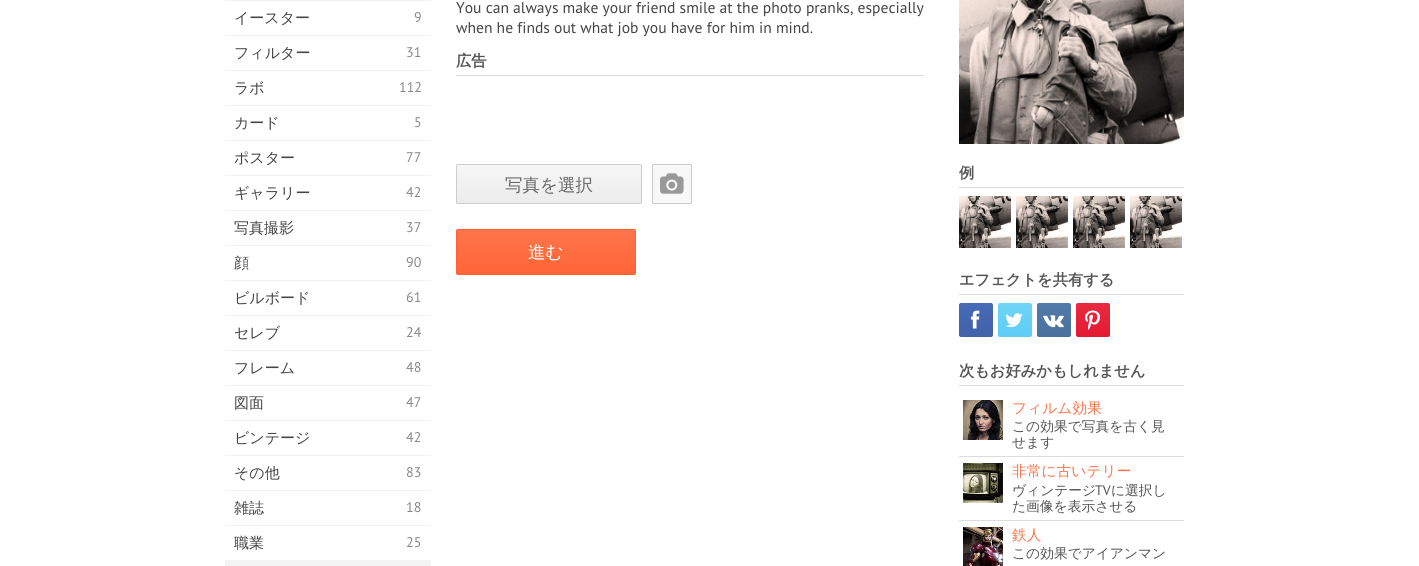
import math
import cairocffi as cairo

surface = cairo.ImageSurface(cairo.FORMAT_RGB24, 1419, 566)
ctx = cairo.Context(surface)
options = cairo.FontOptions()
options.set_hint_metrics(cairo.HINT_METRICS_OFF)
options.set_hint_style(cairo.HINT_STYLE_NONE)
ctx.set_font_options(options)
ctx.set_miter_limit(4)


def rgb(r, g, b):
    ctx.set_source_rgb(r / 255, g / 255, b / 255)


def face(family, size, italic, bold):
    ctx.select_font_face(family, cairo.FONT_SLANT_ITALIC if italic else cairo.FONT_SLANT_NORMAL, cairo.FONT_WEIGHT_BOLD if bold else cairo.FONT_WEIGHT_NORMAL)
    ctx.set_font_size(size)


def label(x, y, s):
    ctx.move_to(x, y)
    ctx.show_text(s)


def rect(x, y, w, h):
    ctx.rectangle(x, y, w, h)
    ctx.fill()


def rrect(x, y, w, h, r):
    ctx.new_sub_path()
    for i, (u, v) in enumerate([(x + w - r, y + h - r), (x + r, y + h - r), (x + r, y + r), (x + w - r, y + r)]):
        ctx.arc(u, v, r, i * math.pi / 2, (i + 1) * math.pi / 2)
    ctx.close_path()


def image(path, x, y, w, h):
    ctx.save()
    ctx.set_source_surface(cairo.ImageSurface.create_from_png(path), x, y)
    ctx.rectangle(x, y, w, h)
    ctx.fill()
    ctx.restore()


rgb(255, 255, 255)
ctx.paint()
rgb(242, 242, 242)
rect(225, 0, 206, 1)
rect(225, 35, 206, 1)
face('WenQuanYi Zen Hei Medium', 15, 0, 0)
rgb(68, 68, 68)
label(234, 23, 'イースター')
face('PT Sans', 14, 0, 0)
rgb(136, 136, 136)
label(414, 22, '9')
rgb(242, 242, 242)
rect(225, 70, 206, 1)
face('WenQuanYi Zen Hei Medium', 15, 0, 0)
rgb(68, 68, 68)
label(234, 58, 'フィルター')
face('PT Sans', 14, 0, 0)
rgb(136, 136, 136)
label(406, 57, '31')
rgb(242, 242, 242)
rect(225, 105, 206, 1)
face('WenQuanYi Zen Hei Medium', 15, 0, 0)
rgb(68, 68, 68)
label(234, 93, 'ラボ')
face('PT Sans', 14, 0, 0)
rgb(136, 136, 136)
label(399, 92, '112')
rgb(242, 242, 242)
rect(225, 140, 206, 1)
face('WenQuanYi Zen Hei Medium', 15, 0, 0)
rgb(68, 68, 68)
label(234, 128, 'カード')
face('PT Sans', 14, 0, 0)
rgb(136, 136, 136)
label(414, 127, '5')
rgb(242, 242, 242)
rect(225, 175, 206, 1)
face('WenQuanYi Zen Hei Medium', 15, 0, 0)
rgb(68, 68, 68)
label(234, 163, 'ポスター')
face('PT Sans', 14, 0, 0)
rgb(136, 136, 136)
label(406, 162, '77')
rgb(242, 242, 242)
rect(225, 210, 206, 1)
face('WenQuanYi Zen Hei Medium', 15, 0, 0)
rgb(68, 68, 68)
label(234, 198, 'ギャラリー')
face('PT Sans', 14, 0, 0)
rgb(136, 136, 136)
label(406, 197, '42')
rgb(242, 242, 242)
rect(225, 245, 206, 1)
face('WenQuanYi Zen Hei Medium', 15, 0, 0)
rgb(68, 68, 68)
label(234, 233, '写真撮影')
face('PT Sans', 14, 0, 0)
rgb(136, 136, 136)
label(406, 232, '37')
rgb(242, 242, 242)
rect(225, 280, 206, 1)
face('WenQuanYi Zen Hei Medium', 15, 0, 0)
rgb(68, 68, 68)
label(234, 268, '顔')
face('PT Sans', 14, 0, 0)
rgb(136, 136, 136)
label(406, 267, '90')
rgb(242, 242, 242)
rect(225, 315, 206, 1)
face('WenQuanYi Zen Hei Medium', 15, 0, 0)
rgb(68, 68, 68)
label(234, 303, 'ビルボード')
face('PT Sans', 14, 0, 0)
rgb(136, 136, 136)
label(406, 302, '61')
rgb(242, 242, 242)
rect(225, 350, 206, 1)
face('WenQuanYi Zen Hei Medium', 15, 0, 0)
rgb(68, 68, 68)
label(234, 338, 'セレブ')
face('PT Sans', 14, 0, 0)
rgb(136, 136, 136)
label(406, 337, '24')
rgb(242, 242, 242)
rect(225, 385, 206, 1)
face('WenQuanYi Zen Hei Medium', 15, 0, 0)
rgb(68, 68, 68)
label(234, 373, 'フレーム')
face('PT Sans', 14, 0, 0)
rgb(136, 136, 136)
label(406, 372, '48')
rgb(242, 242, 242)
rect(225, 420, 206, 1)
face('WenQuanYi Zen Hei Medium', 15, 0, 0)
rgb(68, 68, 68)
label(234, 408, '図面')
face('PT Sans', 14, 0, 0)
rgb(136, 136, 136)
label(406, 407, '47')
rgb(242, 242, 242)
rect(225, 455, 206, 1)
face('WenQuanYi Zen Hei Medium', 15, 0, 0)
rgb(68, 68, 68)
label(234, 443, 'ビンテージ')
face('PT Sans', 14, 0, 0)
rgb(136, 136, 136)
label(406, 442, '42')
rgb(242, 242, 242)
rect(225, 490, 206, 1)
face('WenQuanYi Zen Hei Medium', 15, 0, 0)
rgb(68, 68, 68)
label(234, 478, 'その他')
face('PT Sans', 14, 0, 0)
rgb(136, 136, 136)
label(406, 477, '83')
rgb(242, 242, 242)
rect(225, 525, 206, 1)
face('WenQuanYi Zen Hei Medium', 15, 0, 0)
rgb(68, 68, 68)
label(234, 513, '雑誌')
face('PT Sans', 14, 0, 0)
rgb(136, 136, 136)
label(406, 512, '18')
rgb(242, 242, 242)
rect(225, 560, 206, 1)
ctx.save()
ctx.rectangle(234, 533, 29, 20)
ctx.clip()
face('WenQuanYi Zen Hei Medium', 15, 0, 0)
rgb(68, 68, 68)
label(234, 548, '職業')
ctx.restore()
rgb(136, 136, 136)
label(406, 547, '25')
rgb(244, 244, 244)
rrect(225, 561, 206, 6, 1)
ctx.fill()
face('PT Sans', 15.6, 0, 0)
rgb(68, 68, 68)
label(456, 13, 'You can always make your friend smile at the photo pranks, especially')
label(456, 33, 'when he finds out what job you have for him in mind.')
rgb(218, 218, 218)
rect(456, 75, 468, 1)
face('WenQuanYi Zen Hei', 15.25, 0, 1)
rgb(85, 85, 85)
label(456, 66, '広告')
ctx.save()
rrect(456, 164, 186, 40, 2)
ctx.clip()
gradient = cairo.LinearGradient(457, 203, 457, 165)
gradient.add_color_stop_rgba(0, 0.925, 0.925, 0.925, 1)
gradient.add_color_stop_rgba(1, 0.965, 0.965, 0.965, 1)
ctx.set_source(gradient)
rect(456, 165, 186, 38)
ctx.restore()
rrect(456.5, 164.5, 185, 39, 1.5)
rgb(204, 204, 204)
ctx.set_line_width(1)
ctx.stroke()
face('WenQuanYi Zen Hei Medium', 17.5, 0, 0)
rgb(102, 102, 102)
label(505, 191, '写真を選択')
rgb(248, 248, 248)
rrect(652.5, 164.5, 39, 39, 0.5)
ctx.fill_preserve()
rgb(204, 204, 204)
ctx.stroke()
image('image0.png', 660, 173, 24, 21)
ctx.save()
rrect(456, 229, 180, 46, 2)
ctx.clip()
gradient = cairo.LinearGradient(457, 274, 457, 230)
gradient.add_color_stop_rgba(0, 1, 0.396, 0.216, 1)
gradient.add_color_stop_rgba(1, 1, 0.459, 0.294, 1)
ctx.set_source(gradient)
rect(456, 230, 180, 44)
ctx.restore()
rrect(456.5, 229.5, 179, 45, 1.5)
rgb(255, 97, 49)
ctx.stroke()
rgb(255, 255, 255)
label(528, 258, '進む')
image('image1.png', 959, 0, 225, 144)
rgb(218, 218, 218)
rect(959, 187, 225, 1)
face('WenQuanYi Zen Hei', 15.25, 0, 1)
rgb(85, 85, 85)
label(959, 178, '例')
image('image2.png', 959, 196, 52, 52)
image('image3.png', 1016, 196, 52, 52)
image('image4.png', 1073, 196, 52, 52)
image('image5.png', 1130, 196, 52, 52)
rgb(218, 218, 218)
rect(959, 294, 225, 1)
rgb(85, 85, 85)
label(959, 285, 'エフェクトを共有する')
gradient = cairo.LinearGradient(959, 337, 959, 303)
gradient.add_color_stop_rgba(0, 0.255, 0.384, 0.659, 1)
gradient.add_color_stop_rgba(1, 0.275, 0.416, 0.714, 1)
ctx.set_source(gradient)
rrect(959, 303, 34, 34, 2)
ctx.fill()
image('image6.png', 971, 310, 9, 19)
gradient = cairo.LinearGradient(998, 337, 998, 303)
gradient.add_color_stop_rgba(0, 0.361, 0.808, 0.965, 1)
gradient.add_color_stop_rgba(1, 0.439, 0.831, 0.969, 1)
ctx.set_source(gradient)
rrect(998, 303, 34, 34, 2)
ctx.fill()
image('image7.png', 1005, 313, 18, 15)
gradient = cairo.LinearGradient(1037, 337, 1037, 303)
gradient.add_color_stop_rgba(0, 0.294, 0.443, 0.608, 1)
gradient.add_color_stop_rgba(1, 0.318, 0.482, 0.663, 1)
ctx.set_source(gradient)
rrect(1037, 303, 34, 34, 2)
ctx.fill()
image('image8.png', 1043, 315, 21, 13)
gradient = cairo.LinearGradient(1076, 337, 1076, 303)
gradient.add_color_stop_rgba(0, 0.894, 0.098, 0.196, 1)
gradient.add_color_stop_rgba(1, 0.91, 0.165, 0.255, 1)
ctx.set_source(gradient)
rrect(1076, 303, 34, 34, 2)
ctx.fill()
image('image9.png', 1085, 310, 15, 20)
rgb(218, 218, 218)
rect(959, 385, 225, 1)
rgb(85, 85, 85)
label(959, 376, '次もお好みかもしれません')
rgb(221, 221, 221)
rect(959, 456, 225, 1)
image('image10.png', 963, 400, 40, 40)
face('WenQuanYi Zen Hei Medium', 14.75, 0, 0)
rgb(255, 117, 75)
label(1012, 413, 'フィルム効果')
face('WenQuanYi Zen Hei Medium', 13.75, 0, 0)
rgb(85, 85, 85)
label(1012, 431, 'この効果で写真を古く見')
label(1012, 447, 'せます')
rgb(221, 221, 221)
rect(959, 520, 225, 1)
image('image11.png', 963, 463, 40, 40)
face('WenQuanYi Zen Hei Medium', 14.75, 0, 0)
rgb(255, 117, 75)
label(1012, 476, '非常に古いテリー')
face('WenQuanYi Zen Hei Medium', 13.75, 0, 0)
rgb(85, 85, 85)
label(1012, 495, 'ヴィンテージ')
face('PT Sans', 13.75, 0, 0)
label(1095, 495, 'TV')
face('WenQuanYi Zen Hei Medium', 13.75, 0, 0)
label(1111, 495, 'に選択し')
label(1012, 511, 'た画像を表示させる')
image('image12.png', 963, 527, 40, 39)
face('WenQuanYi Zen Hei Medium', 14.75, 0, 0)
rgb(255, 117, 75)
label(1012, 540, '鉄人')
face('WenQuanYi Zen Hei Medium', 13.75, 0, 0)
rgb(85, 85, 85)
label(1012, 558, 'この効果でアイアンマン')
surface.write_to_png('render.png')
